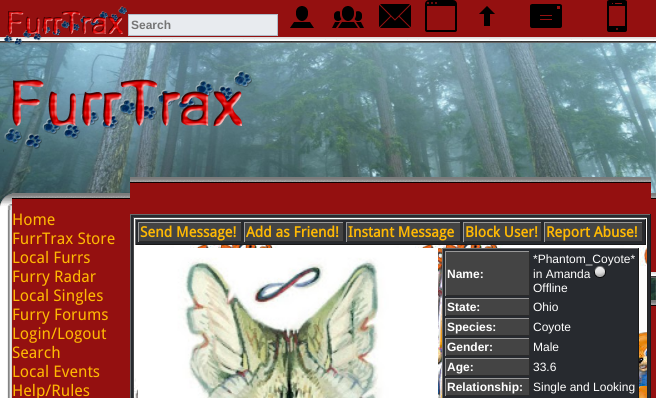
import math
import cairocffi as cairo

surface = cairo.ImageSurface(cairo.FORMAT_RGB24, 656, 398)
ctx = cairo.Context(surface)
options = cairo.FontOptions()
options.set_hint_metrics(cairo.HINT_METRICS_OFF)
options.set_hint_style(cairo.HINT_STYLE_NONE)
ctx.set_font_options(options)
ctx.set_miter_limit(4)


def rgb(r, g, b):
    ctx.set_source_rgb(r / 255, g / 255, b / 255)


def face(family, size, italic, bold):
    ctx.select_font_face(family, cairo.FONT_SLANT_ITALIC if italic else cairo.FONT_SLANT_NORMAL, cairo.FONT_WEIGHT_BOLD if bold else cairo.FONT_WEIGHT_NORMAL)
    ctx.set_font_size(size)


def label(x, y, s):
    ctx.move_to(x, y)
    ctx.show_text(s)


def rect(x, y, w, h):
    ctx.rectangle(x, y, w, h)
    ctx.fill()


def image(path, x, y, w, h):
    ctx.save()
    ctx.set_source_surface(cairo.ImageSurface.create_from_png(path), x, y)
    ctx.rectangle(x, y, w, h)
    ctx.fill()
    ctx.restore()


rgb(255, 255, 255)
ctx.paint()
image('image0.png', 0, 43, 656, 257)
image('image1.png', 0, 0, 656, 43)
image('image2.png', 3, 6, 125, 41)
rgb(232, 235, 239)
ctx.rectangle(128.5, 14.5, 149, 21)
ctx.fill_preserve()
rgb(177, 189, 201)
ctx.set_line_width(1)
ctx.stroke()
face('Liberation Sans', 12, 0, 1)
rgb(117, 117, 117)
label(131, 29, 'Search')
image('image3.png', 290, 6, 24, 22)
image('image4.png', 332, 6, 32, 22)
image('image5.png', 379, 4, 32, 24)
image('image6.png', 425, 0, 32, 32)
image('image7.png', 479, 6, 16, 20)
image('image8.png', 530, 4, 32, 24)
image('image9.png', 607, 0, 20, 32)
image('image10.png', 3, 70, 249, 82)
image('image11.png', 0, 193, 12, 17)
image('image12.png', 12, 193, 118, 17)
image('image13.png', 0, 210, 12, 188)
rgb(148, 16, 16)
rect(12, 210, 118, 188)
face('Droid Sans', 16, 0, 0)
rgb(255, 185, 3)
label(12, 225, 'Home')
label(12, 244, 'FurrTrax Store')
label(12, 263, 'Local Furrs')
label(12, 282, 'Furry Radar')
label(12, 301, 'Local Singles')
label(12, 320, 'Furry Forums')
label(12, 339, 'Login/Logout')
label(12, 358, 'Search')
label(12, 377, 'Local Events')
label(12, 396, 'Help/Rules')
image('image14.png', 130, 177, 521, 21)
rgb(148, 16, 16)
rect(130, 198, 521, 16)
rgb(39, 42, 47)
rect(131, 215, 519, 183)
rgb(107, 107, 107)
rect(130, 214, 521, 1)
rgb(25, 25, 25)
rect(650, 214, 1, 184)
rgb(107, 107, 107)
rect(130, 214, 1, 184)
image('image15.png', 134, 218, 513, 180)
rgb(71, 71, 71)
rect(133, 217, 515, 1)
rgb(37, 37, 37)
rect(647, 217, 1, 181)
rgb(71, 71, 71)
rect(133, 217, 1, 181)
rgb(39, 42, 47)
rect(136, 220, 509, 24)
rgb(107, 107, 107)
rect(135, 219, 511, 1)
rgb(25, 25, 25)
rect(645, 219, 1, 26)
rect(135, 244, 511, 1)
rgb(107, 107, 107)
rect(135, 219, 1, 26)
rgb(68, 68, 68)
rect(139, 223, 102, 18)
rgb(153, 153, 153)
rect(138, 222, 104, 1)
rgb(43, 43, 43)
rect(241, 222, 1, 20)
rect(138, 241, 104, 1)
rgb(153, 153, 153)
rect(138, 222, 1, 20)
face('Droid Sans', 14.5, 0, 1)
rgb(255, 185, 3)
label(140, 237, 'Send Message!')
rgb(68, 68, 68)
rect(245, 223, 98, 18)
rgb(153, 153, 153)
rect(244, 222, 100, 1)
rgb(43, 43, 43)
rect(343, 222, 1, 20)
rect(244, 241, 100, 1)
rgb(153, 153, 153)
rect(244, 222, 1, 20)
rgb(255, 185, 3)
label(246, 237, 'Add as Friend!')
rgb(68, 68, 68)
rect(347, 223, 113, 18)
rgb(153, 153, 153)
rect(346, 222, 115, 1)
rgb(43, 43, 43)
rect(460, 222, 1, 20)
rect(346, 241, 115, 1)
rgb(153, 153, 153)
rect(346, 222, 1, 20)
rgb(255, 185, 3)
label(348, 237, 'Instant Message')
rgb(68, 68, 68)
rect(464, 223, 77, 18)
rgb(153, 153, 153)
rect(463, 222, 79, 1)
rgb(43, 43, 43)
rect(541, 222, 1, 20)
rect(463, 241, 79, 1)
rgb(153, 153, 153)
rect(463, 222, 1, 20)
rgb(255, 185, 3)
label(465, 237, 'Block User!')
rgb(68, 68, 68)
rect(545, 223, 97, 18)
rgb(153, 153, 153)
rect(544, 222, 99, 1)
rgb(43, 43, 43)
rect(642, 222, 1, 20)
rect(544, 241, 99, 1)
rgb(153, 153, 153)
rect(544, 222, 1, 20)
rgb(255, 185, 3)
label(546, 237, 'Report Abuse!')
image('image16.png', 138, 248, 300, 150)
rgb(39, 42, 47)
rect(443, 249, 195, 149)
rgb(107, 107, 107)
rect(442, 248, 197, 1)
rgb(25, 25, 25)
rect(638, 248, 1, 150)
rgb(107, 107, 107)
rect(442, 248, 1, 150)
rgb(68, 68, 68)
rect(446, 252, 83, 43)
rgb(153, 153, 153)
rect(445, 251, 85, 1)
rgb(43, 43, 43)
rect(529, 251, 1, 45)
rect(445, 295, 85, 1)
rgb(153, 153, 153)
rect(445, 251, 1, 45)
face('Liberation Sans', 12, 0, 1)
rgb(255, 255, 255)
label(447, 278, 'Name:')
face('Liberation Sans', 12, 0, 0)
label(533, 263, '*Phantom_Coyote*')
label(533, 278, 'in Amanda')
image('image17.png', 594, 266, 12, 12)
label(533, 292, 'Offline')
rgb(68, 68, 68)
rect(446, 299, 83, 16)
rgb(153, 153, 153)
rect(445, 298, 85, 1)
rgb(43, 43, 43)
rect(529, 298, 1, 18)
rect(445, 315, 85, 1)
rgb(153, 153, 153)
rect(445, 298, 1, 18)
face('Liberation Sans', 12, 0, 1)
rgb(255, 255, 255)
label(447, 311, 'State:')
face('Liberation Sans', 12, 0, 0)
label(533, 311, 'Ohio')
rgb(68, 68, 68)
rect(446, 319, 83, 16)
rgb(153, 153, 153)
rect(445, 318, 85, 1)
rgb(43, 43, 43)
rect(529, 318, 1, 18)
rect(445, 335, 85, 1)
rgb(153, 153, 153)
rect(445, 318, 1, 18)
face('Liberation Sans', 12, 0, 1)
rgb(255, 255, 255)
label(447, 331, 'Species:')
face('Liberation Sans', 12, 0, 0)
label(533, 331, 'Coyote')
rgb(68, 68, 68)
rect(446, 339, 83, 16)
rgb(153, 153, 153)
rect(445, 338, 85, 1)
rgb(43, 43, 43)
rect(529, 338, 1, 18)
rect(445, 355, 85, 1)
rgb(153, 153, 153)
rect(445, 338, 1, 18)
face('Liberation Sans', 12, 0, 1)
rgb(255, 255, 255)
label(447, 351, 'Gender:')
face('Liberation Sans', 12, 0, 0)
label(533, 351, 'Male')
rgb(68, 68, 68)
rect(446, 359, 83, 16)
rgb(153, 153, 153)
rect(445, 358, 85, 1)
rgb(43, 43, 43)
rect(529, 358, 1, 18)
rect(445, 375, 85, 1)
rgb(153, 153, 153)
rect(445, 358, 1, 18)
face('Liberation Sans', 12, 0, 1)
rgb(255, 255, 255)
label(447, 371, 'Age:')
face('Liberation Sans', 12, 0, 0)
label(533, 371, '33.6')
rgb(68, 68, 68)
rect(446, 379, 83, 16)
rgb(153, 153, 153)
rect(445, 378, 85, 1)
rgb(43, 43, 43)
rect(529, 378, 1, 18)
rect(445, 395, 85, 1)
rgb(153, 153, 153)
rect(445, 378, 1, 18)
face('Liberation Sans', 12, 0, 1)
rgb(255, 255, 255)
label(447, 391, 'Relationship:')
face('Liberation Sans', 12, 0, 0)
label(533, 391, 'Single and Looking')
image('image18.png', 651, 193, 5, 21)
rgb(148, 16, 16)
rect(651, 214, 5, 47)
image('image19.png', 651, 261, 5, 17)
image('image18.png', 651, 300, 5, 21)
rect(651, 321, 5, 77)
surface.write_to_png('render.png')
